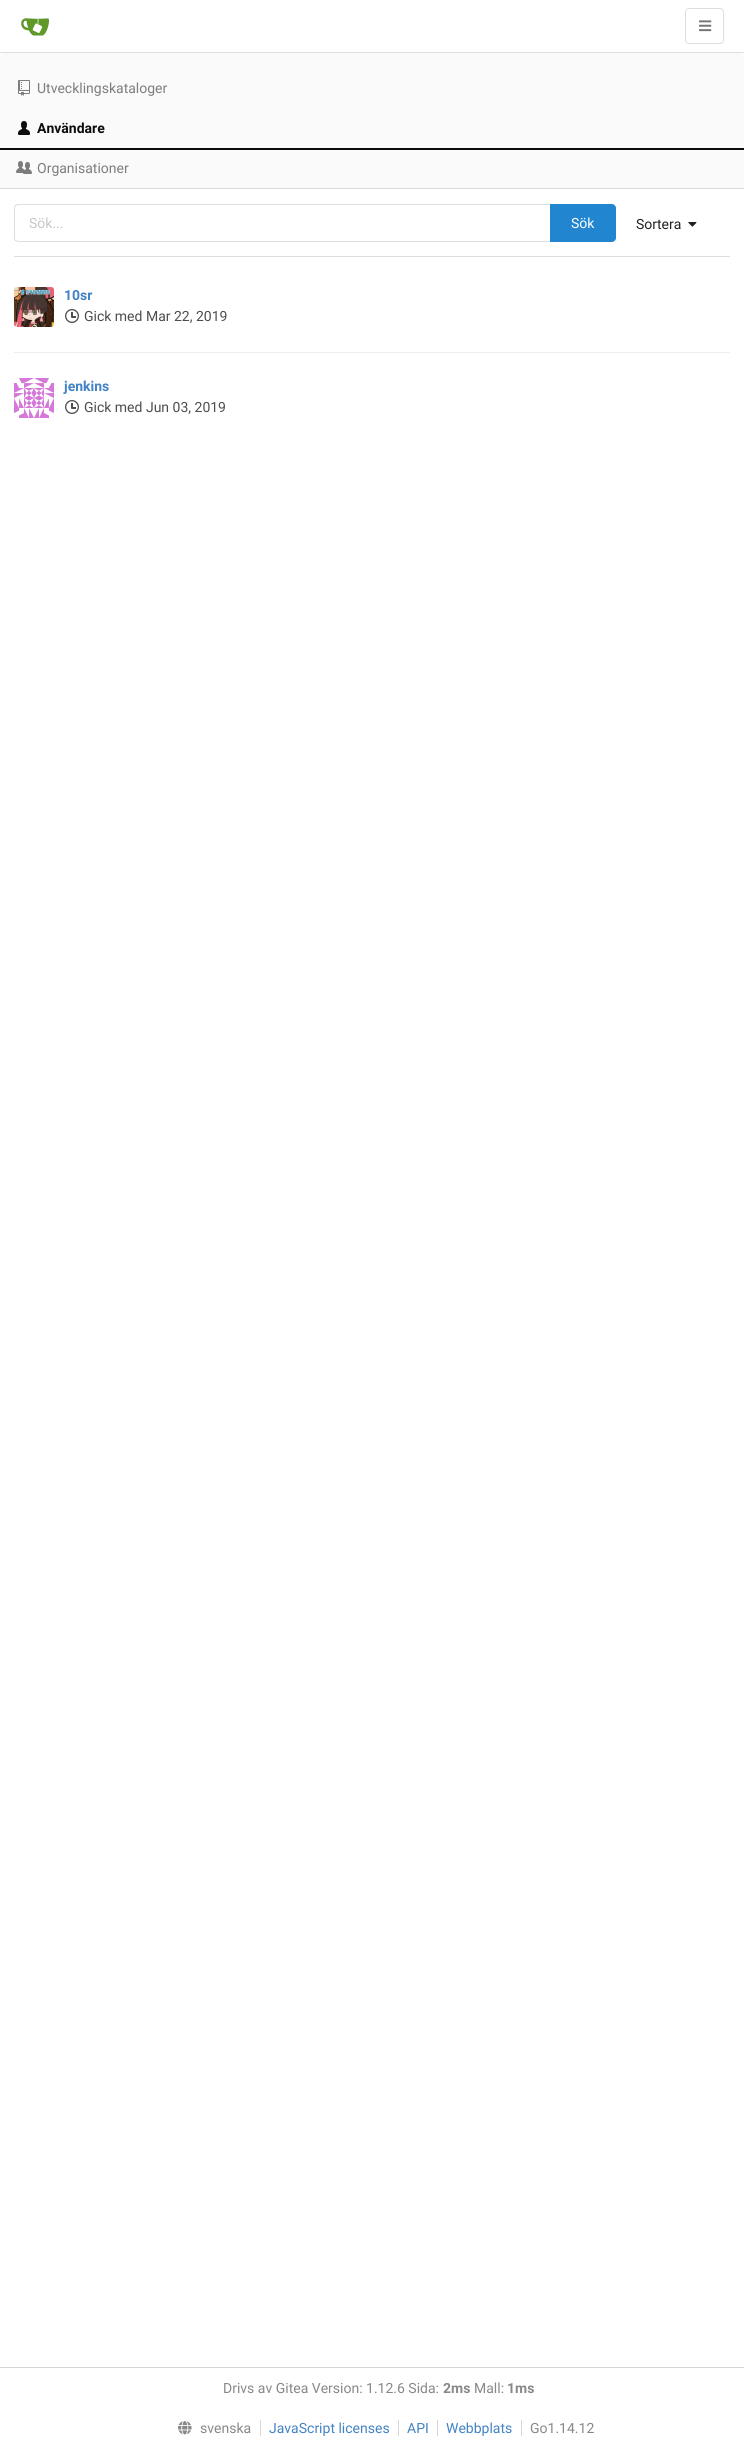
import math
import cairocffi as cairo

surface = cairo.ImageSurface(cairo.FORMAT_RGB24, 744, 2448)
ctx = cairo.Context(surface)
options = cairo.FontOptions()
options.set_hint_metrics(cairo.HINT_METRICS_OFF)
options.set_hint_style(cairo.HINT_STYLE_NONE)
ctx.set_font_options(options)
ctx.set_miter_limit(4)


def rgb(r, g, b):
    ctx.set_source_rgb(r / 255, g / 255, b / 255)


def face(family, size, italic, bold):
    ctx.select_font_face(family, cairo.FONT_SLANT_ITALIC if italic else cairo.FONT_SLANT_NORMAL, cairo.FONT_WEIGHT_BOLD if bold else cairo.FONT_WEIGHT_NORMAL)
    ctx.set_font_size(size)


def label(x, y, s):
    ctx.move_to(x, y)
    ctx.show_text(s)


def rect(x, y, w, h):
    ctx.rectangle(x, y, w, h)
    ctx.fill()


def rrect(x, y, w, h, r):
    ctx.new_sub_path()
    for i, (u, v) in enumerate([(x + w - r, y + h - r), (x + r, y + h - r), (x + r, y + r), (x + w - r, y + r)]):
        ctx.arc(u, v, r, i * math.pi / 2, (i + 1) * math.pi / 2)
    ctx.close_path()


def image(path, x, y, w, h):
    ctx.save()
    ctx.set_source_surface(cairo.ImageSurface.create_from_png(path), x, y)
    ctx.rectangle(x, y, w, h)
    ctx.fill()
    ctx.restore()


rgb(255, 255, 255)
ctx.paint()
rgb(221, 221, 221)
rect(0, 52, 744, 1)
image('image0.png', 21, 18, 28, 18)
rrect(685.5, 8.5, 38, 35, 3.5)
rgb(222, 222, 222)
ctx.set_line_width(1)
ctx.stroke()
image('image1.png', 699, 20, 13, 12)
rgb(250, 250, 250)
ctx.new_path()
ctx.move_to(4, 53)
ctx.line_to(740, 53)
ctx.curve_to(742, 53, 744, 55, 744, 57)
ctx.line_to(744, 189)
ctx.line_to(0, 189)
ctx.line_to(0, 57)
ctx.curve_to(0, 55, 2, 53, 4, 53)
ctx.close_path()
ctx.fill()
rgb(218, 218, 218)
rect(0, 188, 744, 1)
image('image2.png', 18, 80, 12, 16)
face('Roboto', 14, 0, 0)
rgb(125, 125, 125)
label(37, 93, 'Utvecklingskataloger')
rgb(13, 13, 13)
rect(0, 148, 744, 2)
image('image3.png', 18, 121, 12, 14)
face('Roboto', 14, 0, 1)
label(37, 133, 'Användare')
image('image4.png', 16, 161, 16, 13)
face('Roboto', 14, 0, 0)
rgb(125, 125, 125)
label(37, 173, 'Organisationer')
rgb(222, 222, 222)
ctx.new_path()
ctx.move_to(18, 204)
ctx.line_to(15, 205)
ctx.line_to(16, 206)
ctx.line_to(18, 205)
ctx.line_to(549, 205)
ctx.line_to(550, 204)
ctx.close_path()
ctx.fill()
ctx.new_path()
ctx.move_to(550, 242)
ctx.line_to(549, 241)
ctx.line_to(18, 241)
ctx.line_to(16, 240)
ctx.line_to(15, 241)
ctx.line_to(18, 242)
ctx.close_path()
ctx.fill()
ctx.set_source_rgba(0.133, 0.141, 0.149, 0.15)
ctx.new_path()
ctx.move_to(14, 208)
ctx.line_to(14, 238)
ctx.curve_to(14, 239, 14.5, 240, 15, 241)
ctx.line_to(16, 240)
ctx.curve_to(15, 240, 15, 239, 15, 238)
ctx.line_to(15, 208)
ctx.curve_to(15, 207, 15, 206, 16, 206)
ctx.line_to(15, 205)
ctx.curve_to(14.5, 206, 14, 207, 14, 208)
ctx.close_path()
ctx.fill()
rgb(199, 199, 199)
label(29, 228, 'Sök...')
rgb(33, 133, 208)
ctx.new_path()
ctx.move_to(550, 204)
ctx.line_to(612, 204)
ctx.curve_to(614, 204, 616, 206, 616, 208)
ctx.line_to(616, 238)
ctx.curve_to(616, 240, 614, 242, 612, 242)
ctx.line_to(550, 242)
ctx.close_path()
ctx.fill()
rgb(255, 255, 255)
label(571, 228, 'Sök')
rgb(33, 33, 33)
label(636, 229, 'Sortera')
image('image5.png', 688, 222, 9, 5)
rgb(222, 222, 222)
rect(14, 256, 716, 1)
image('image6.png', 14, 287, 40, 40)
face('Roboto', 14, 0, 1)
rgb(65, 131, 196)
label(64, 300, '10sr')
image('image7.png', 65, 309, 14, 14)
face('Roboto', 14, 0, 0)
rgb(77, 77, 77)
label(84, 321, 'Gick med Mar 22, 2019')
rgb(238, 238, 238)
rect(14, 352, 716, 1)
image('image8.png', 14, 378, 40, 40)
face('Roboto', 14, 0, 1)
rgb(65, 131, 196)
label(64, 391, 'jenkins')
image('image7.png', 65, 400, 14, 14)
face('Roboto', 14, 0, 0)
rgb(77, 77, 77)
label(84, 412, 'Gick med Jun 03, 2019')
rgb(214, 214, 214)
rect(0, 2367, 744, 1)
rgb(136, 136, 136)
label(223, 2393, 'Drivs av Gitea Version: 1.12.6 Sida:')
face('Roboto', 14, 0, 1)
label(443, 2393, '2ms')
face('Roboto', 14, 0, 0)
label(474, 2393, 'Mall:')
face('Roboto', 14, 0, 1)
label(507, 2393, '1ms')
image('image9.png', 178, 2421, 14, 14)
face('Roboto', 14, 0, 0)
label(200, 2433, 'svenska')
rgb(65, 131, 196)
label(269, 2433, 'JavaScript licenses')
rgb(214, 214, 214)
rect(260, 2420, 1, 16)
rgb(65, 131, 196)
label(407, 2433, 'API')
rgb(214, 214, 214)
rect(398, 2420, 1, 16)
rgb(65, 131, 196)
label(446, 2433, 'Webbplats')
rgb(214, 214, 214)
rect(437, 2420, 1, 16)
rgb(136, 136, 136)
label(530, 2433, 'Go1.14.12')
rgb(214, 214, 214)
rect(521, 2420, 1, 16)
surface.write_to_png('render.png')
